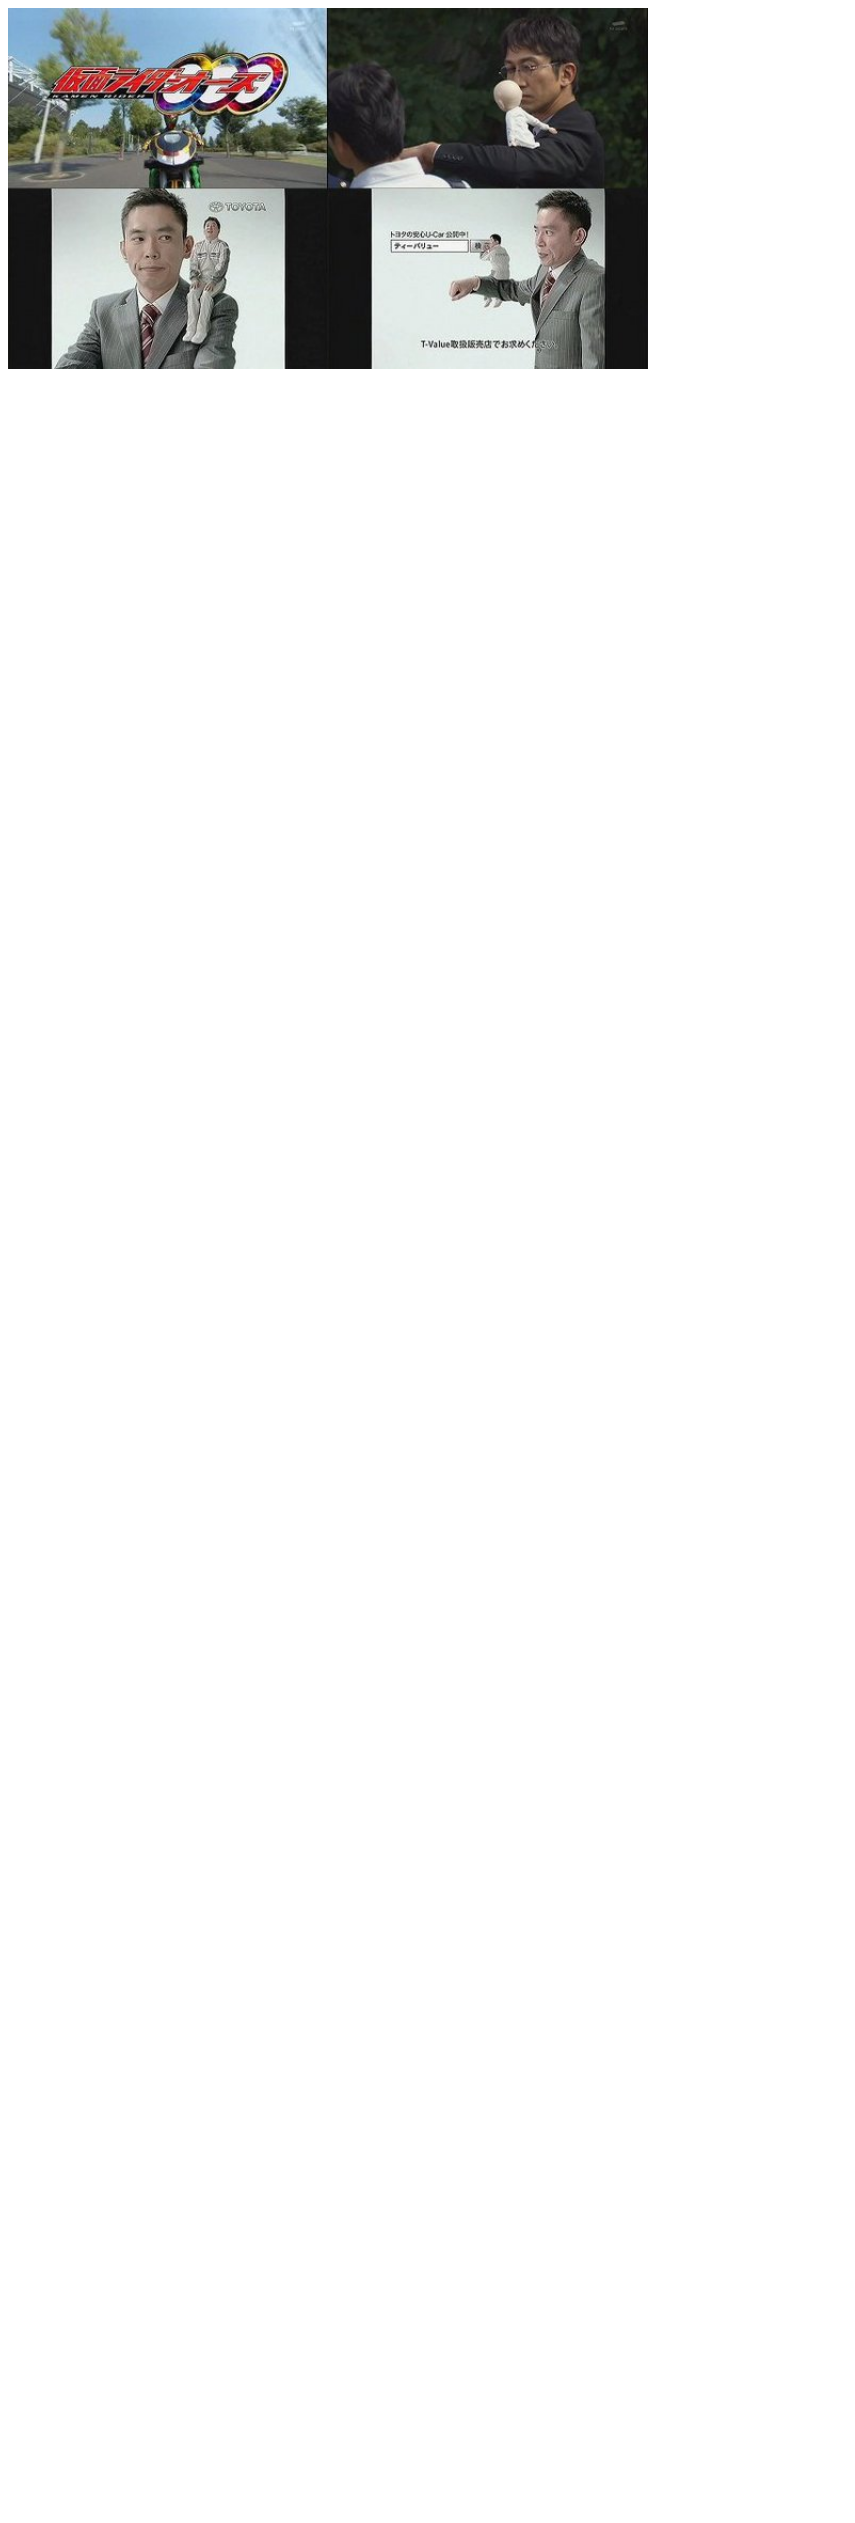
import math
import cairocffi as cairo

surface = cairo.ImageSurface(cairo.FORMAT_RGB24, 855, 2523)
ctx = cairo.Context(surface)
options = cairo.FontOptions()
options.set_hint_metrics(cairo.HINT_METRICS_OFF)
options.set_hint_style(cairo.HINT_STYLE_NONE)
ctx.set_font_options(options)
ctx.set_miter_limit(4)


def rgb(r, g, b):
    ctx.set_source_rgb(r / 255, g / 255, b / 255)


def image(path, x, y, w, h):
    ctx.save()
    ctx.set_source_surface(cairo.ImageSurface.create_from_png(path), x, y)
    ctx.rectangle(x, y, w, h)
    ctx.fill()
    ctx.restore()


rgb(255, 255, 255)
ctx.paint()
image('image0.png', 8, 8, 640, 361)
surface.write_to_png('render.png')
